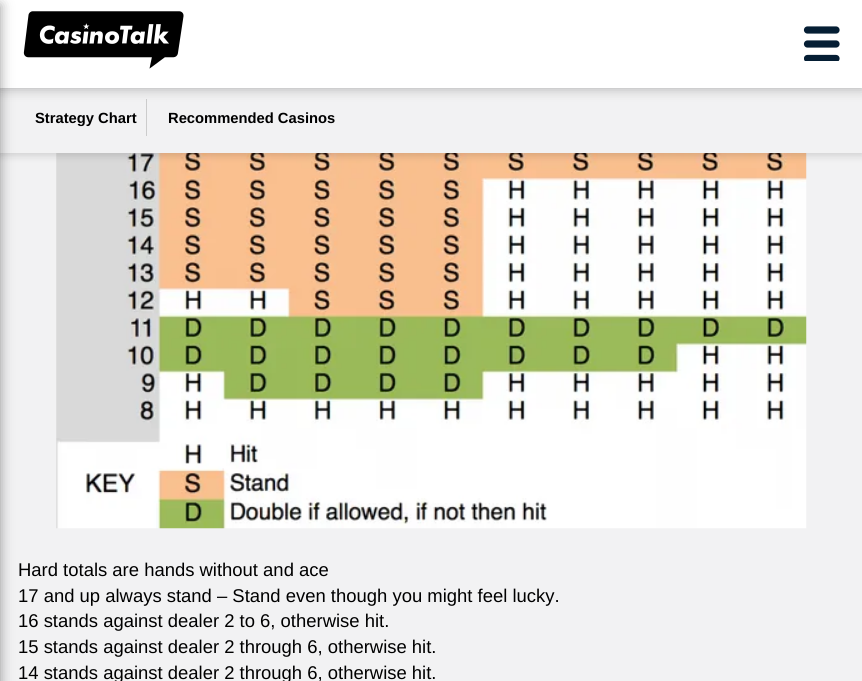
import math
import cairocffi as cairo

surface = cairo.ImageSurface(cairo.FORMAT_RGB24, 862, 681)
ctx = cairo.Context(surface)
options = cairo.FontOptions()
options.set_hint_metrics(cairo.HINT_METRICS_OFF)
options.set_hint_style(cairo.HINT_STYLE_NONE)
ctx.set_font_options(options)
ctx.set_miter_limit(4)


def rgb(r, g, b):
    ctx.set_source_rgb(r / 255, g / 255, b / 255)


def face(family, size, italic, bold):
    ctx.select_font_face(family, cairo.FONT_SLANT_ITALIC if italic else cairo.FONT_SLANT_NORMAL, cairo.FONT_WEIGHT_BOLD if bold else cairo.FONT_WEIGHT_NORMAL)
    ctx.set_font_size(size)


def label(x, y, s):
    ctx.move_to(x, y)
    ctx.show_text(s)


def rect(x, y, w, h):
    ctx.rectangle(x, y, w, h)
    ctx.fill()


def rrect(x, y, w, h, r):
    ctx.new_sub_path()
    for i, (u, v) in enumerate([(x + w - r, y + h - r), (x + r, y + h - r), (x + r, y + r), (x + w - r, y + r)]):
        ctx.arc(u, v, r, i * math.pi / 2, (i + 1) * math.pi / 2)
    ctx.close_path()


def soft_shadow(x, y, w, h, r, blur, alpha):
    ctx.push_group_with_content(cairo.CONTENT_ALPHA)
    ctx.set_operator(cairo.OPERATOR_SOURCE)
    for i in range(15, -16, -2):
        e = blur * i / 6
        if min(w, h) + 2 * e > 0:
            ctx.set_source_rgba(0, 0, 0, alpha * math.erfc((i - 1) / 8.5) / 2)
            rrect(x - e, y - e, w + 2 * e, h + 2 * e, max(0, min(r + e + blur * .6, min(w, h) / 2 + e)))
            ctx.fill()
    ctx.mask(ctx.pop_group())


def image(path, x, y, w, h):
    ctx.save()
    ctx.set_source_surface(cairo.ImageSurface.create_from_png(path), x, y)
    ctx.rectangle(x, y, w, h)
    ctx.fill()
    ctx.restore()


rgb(242, 242, 243)
ctx.paint()
image('image1.png', 56, 153, 751, 376)
rgb(0, 0, 0)
soft_shadow(0, 84, 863, 71, 0, 4.5, 0.16)
rgb(242, 242, 243)
rect(0, 88, 862, 65)
rgb(204, 204, 204)
rect(146, 99, 1, 37)
rgb(0, 0, 0)
soft_shadow(0, 0, 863, 88, 0, 6.5, 0.3)
rgb(255, 255, 255)
rect(0, 0, 862, 88)
rgb(0, 0, 0)
soft_shadow(-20, 5, 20, 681, 0, 6.5, 0.4)
ctx.new_path()
ctx.move_to(807.5, 30)
ctx.line_to(836, 30)
rgb(5, 30, 52)
ctx.set_line_width(7.2)
ctx.set_line_cap(cairo.LINE_CAP_ROUND)
ctx.stroke()
ctx.save()
ctx.rectangle(804, 26, 36, 35)
ctx.clip()
ctx.new_path()
ctx.move_to(807.5, 58.5)
ctx.line_to(836, 58.5)
ctx.stroke()
ctx.restore()
ctx.new_path()
ctx.move_to(807.5, 44)
ctx.line_to(836, 44)
ctx.stroke()
image('image0.png', 23, 11, 161, 58)
face('Liberation Sans', 14.75, 0, 1)
rgb(0, 0, 0)
label(35, 123, 'Strategy Chart')
label(168, 123, 'Recommended Casinos')
face('Liberation Sans', 18.45, 0, 0)
label(18, 576, 'Hard totals are hands without and ace')
label(18, 602, '17 and up always stand – Stand even though you might feel lucky.')
label(18, 627, '16 stands against dealer 2 to 6, otherwise hit.')
label(18, 653, '15 stands against dealer 2 through 6, otherwise hit.')
label(18, 679, '14 stands against dealer 2 through 6, otherwise hit.')
surface.write_to_png('render.png')
